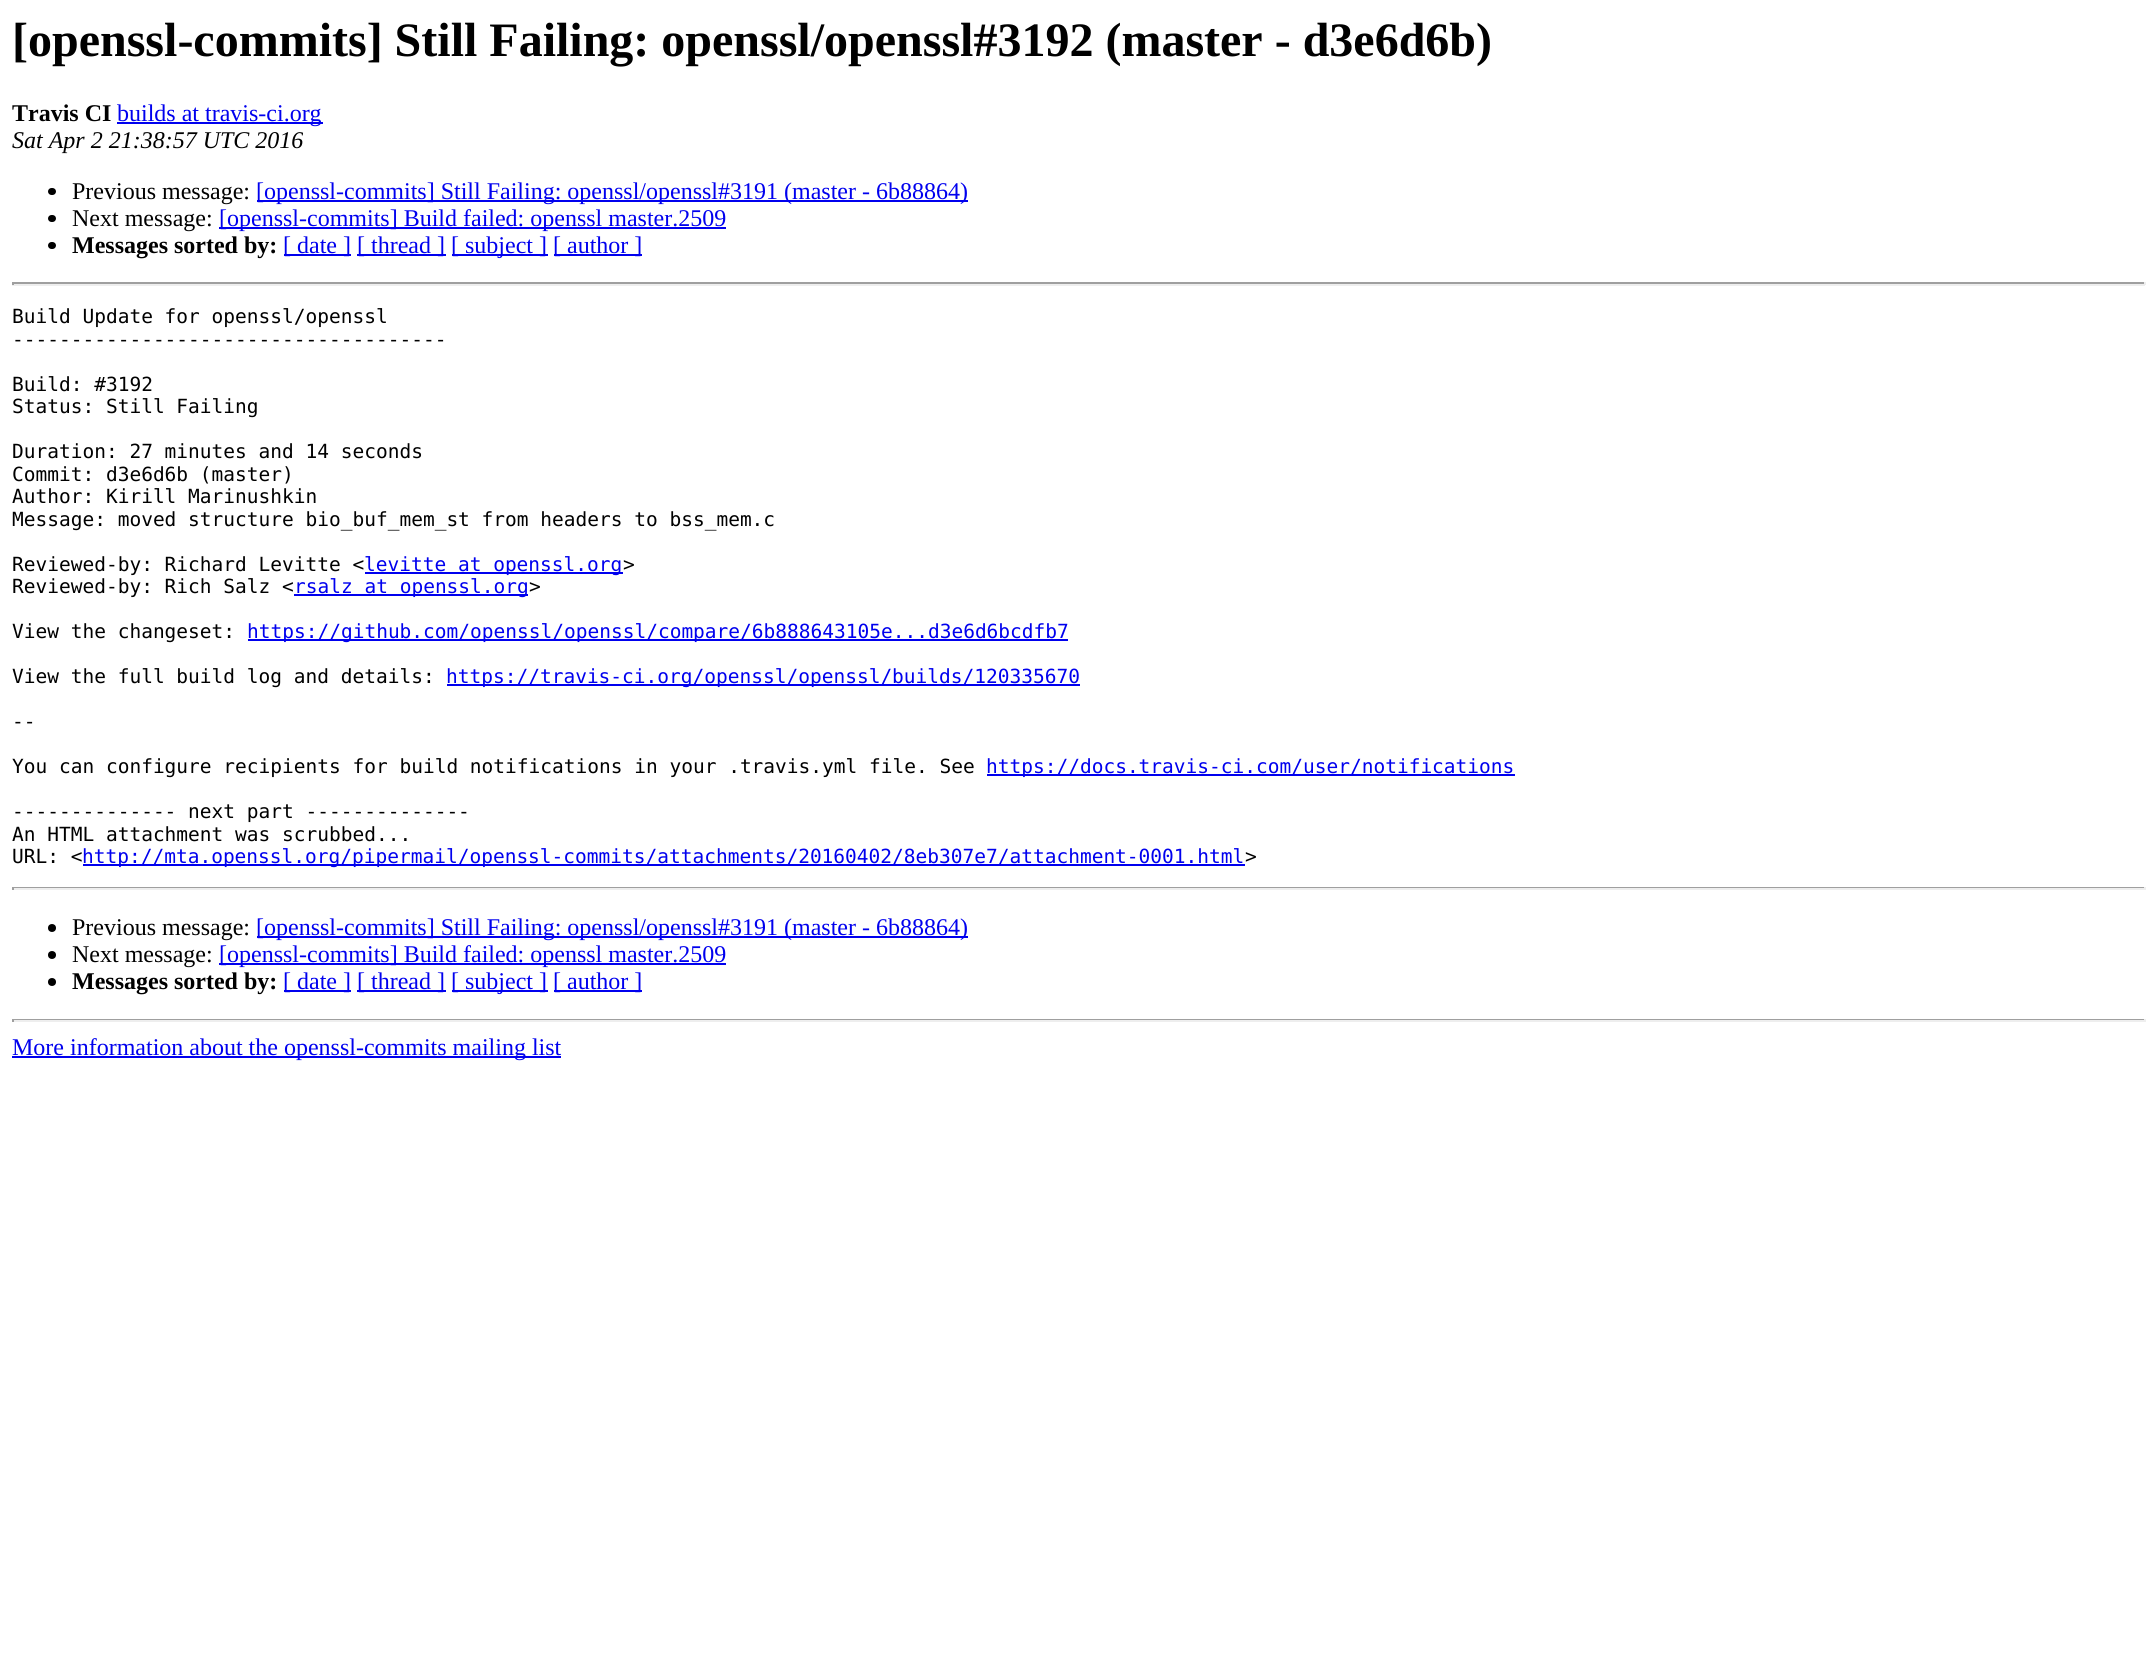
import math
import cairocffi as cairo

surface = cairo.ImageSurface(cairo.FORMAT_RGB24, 2156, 1662)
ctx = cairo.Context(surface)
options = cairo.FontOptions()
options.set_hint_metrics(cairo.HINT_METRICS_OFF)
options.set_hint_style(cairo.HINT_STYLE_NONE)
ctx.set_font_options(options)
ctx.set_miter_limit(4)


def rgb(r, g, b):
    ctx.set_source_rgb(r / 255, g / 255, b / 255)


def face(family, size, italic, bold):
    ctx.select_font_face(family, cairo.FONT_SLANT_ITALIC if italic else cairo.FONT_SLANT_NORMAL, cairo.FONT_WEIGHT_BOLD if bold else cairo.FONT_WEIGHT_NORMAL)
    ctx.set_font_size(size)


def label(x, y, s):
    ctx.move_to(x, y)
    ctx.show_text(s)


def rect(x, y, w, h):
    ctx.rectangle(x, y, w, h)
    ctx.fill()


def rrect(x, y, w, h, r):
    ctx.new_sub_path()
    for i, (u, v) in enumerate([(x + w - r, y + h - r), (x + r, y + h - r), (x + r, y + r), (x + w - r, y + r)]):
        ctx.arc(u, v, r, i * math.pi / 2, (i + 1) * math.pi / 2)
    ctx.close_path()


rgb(255, 255, 255)
ctx.paint()
face('Liberation Serif', 48, 0, 1)
rgb(0, 0, 0)
label(12, 56, '[openssl-commits] Still Failing: openssl/openssl#3192 (master - d3e6d6b)')
face('Liberation Serif', 24, 0, 1)
label(12, 121, 'Travis CI')
rgb(0, 0, 238)
rect(117, 122, 206, 2)
face('Liberation Serif', 24, 0, 0)
label(117, 121, 'builds at travis-ci.org')
face('Liberation Serif', 24, 1, 0)
rgb(0, 0, 0)
label(12, 148, 'Sat Apr 2 21:38:57 UTC 2016')
rrect(48, 188, 8, 7, 3.5)
ctx.fill()
face('Liberation Serif', 24, 0, 0)
label(72, 199, 'Previous message:')
rgb(0, 0, 238)
rect(257, 200, 711, 2)
label(256, 199, '[openssl-commits] Still Failing: openssl/openssl#3191 (master - 6b88864)')
rgb(0, 0, 0)
rrect(48, 215, 8, 7, 3.5)
ctx.fill()
label(72, 226, 'Next message:')
rgb(0, 0, 238)
rect(219, 227, 507, 2)
label(219, 226, '[openssl-commits] Build failed: openssl master.2509')
rgb(0, 0, 0)
rrect(48, 242, 8, 7, 3.5)
ctx.fill()
face('Liberation Serif', 24, 0, 1)
label(72, 253, 'Messages sorted by:')
rgb(0, 0, 238)
rect(284, 254, 67, 2)
face('Liberation Serif', 24, 0, 0)
label(283, 253, '[ date ]')
rect(357, 254, 89, 2)
label(357, 253, '[ thread ]')
rect(452, 254, 96, 2)
label(451, 253, '[ subject ]')
rect(554, 254, 88, 2)
label(553, 253, '[ author ]')
rgb(159, 159, 159)
rect(12, 282, 2133, 2)
rgb(238, 238, 238)
rect(2144, 282, 2, 3)
rect(12, 284, 2133, 2)
rgb(159, 159, 159)
rect(12, 282, 2, 3)
face('DejaVu Sans Mono', 19.5, 0, 0)
rgb(0, 0, 0)
label(12, 323, 'Build Update for openssl/openssl')
label(12, 346, '-------------------------------------')
label(12, 391, 'Build: #3192')
label(12, 413, 'Status: Still Failing')
label(12, 458, 'Duration: 27 minutes and 14 seconds')
label(12, 481, 'Commit: d3e6d6b (master)')
label(12, 503, 'Author: Kirill Marinushkin')
label(12, 526, 'Message: moved structure bio_buf_mem_st from headers to bss_mem.c')
label(12, 571, 'Reviewed-by: Richard Levitte <')
rgb(0, 0, 238)
rect(365, 572, 258, 2)
label(364, 571, 'levitte at openssl.org')
rgb(0, 0, 0)
label(623, 571, '>')
label(12, 593, 'Reviewed-by: Rich Salz <')
rgb(0, 0, 238)
rect(294, 594, 234, 2)
label(294, 593, 'rsalz at openssl.org')
rgb(0, 0, 0)
label(529, 593, '>')
label(12, 638, 'View the changeset:')
rgb(0, 0, 238)
rect(248, 639, 820, 2)
label(247, 638, 'https://github.com/openssl/openssl/compare/6b888643105e...d3e6d6bcdfb7')
rgb(0, 0, 0)
label(12, 683, 'View the full build log and details:')
rgb(0, 0, 238)
rect(447, 684, 633, 2)
label(446, 683, 'https://travis-ci.org/openssl/openssl/builds/120335670')
rgb(0, 0, 0)
label(12, 728, '--')
label(12, 773, 'You can configure recipients for build notifications in your .travis.yml file. See')
rgb(0, 0, 238)
rect(987, 774, 528, 2)
label(986, 773, 'https://docs.travis-ci.com/user/notifications')
rgb(0, 0, 0)
label(12, 818, '-------------- next part --------------')
label(12, 841, 'An HTML attachment was scrubbed...')
label(12, 863, 'URL: <')
rgb(0, 0, 238)
rect(83, 864, 1162, 2)
label(82, 863, 'http://mta.openssl.org/pipermail/openssl-commits/attachments/20160402/8eb307e7/attachment-0001.html')
rgb(0, 0, 0)
label(1245, 863, '>')
rgb(159, 159, 159)
rect(12, 887, 2133, 1)
rgb(238, 238, 238)
rect(2144, 887, 2, 3)
rect(12, 888, 2133, 2)
rgb(159, 159, 159)
rect(12, 887, 2, 3)
rgb(0, 0, 0)
ctx.new_path()
ctx.arc(52, 928, 4, 0, 2 * math.pi)
ctx.fill()
face('Liberation Serif', 24, 0, 0)
label(72, 935, 'Previous message:')
rgb(0, 0, 238)
rect(257, 936, 711, 2)
label(256, 935, '[openssl-commits] Still Failing: openssl/openssl#3191 (master - 6b88864)')
rgb(0, 0, 0)
ctx.new_path()
ctx.arc(52, 955, 4, 0, 2 * math.pi)
ctx.fill()
label(72, 962, 'Next message:')
rgb(0, 0, 238)
rect(219, 963, 507, 2)
label(219, 962, '[openssl-commits] Build failed: openssl master.2509')
rgb(0, 0, 0)
ctx.new_path()
ctx.arc(52, 982, 4, 0, 2 * math.pi)
ctx.fill()
face('Liberation Serif', 24, 0, 1)
label(72, 989, 'Messages sorted by:')
rgb(0, 0, 238)
rect(284, 990, 67, 2)
face('Liberation Serif', 24, 0, 0)
label(283, 989, '[ date ]')
rect(357, 990, 89, 2)
label(357, 989, '[ thread ]')
rect(452, 990, 96, 2)
label(451, 989, '[ subject ]')
rect(554, 990, 88, 2)
label(553, 989, '[ author ]')
rgb(159, 159, 159)
rect(12, 1019, 2133, 1)
rgb(238, 238, 238)
rect(2144, 1019, 2, 3)
rect(12, 1020, 2133, 2)
rgb(159, 159, 159)
rect(12, 1019, 2, 3)
rgb(0, 0, 238)
rect(12, 1056, 549, 2)
label(12, 1055, 'More information about the openssl-commits mailing list')
surface.write_to_png('render.png')
